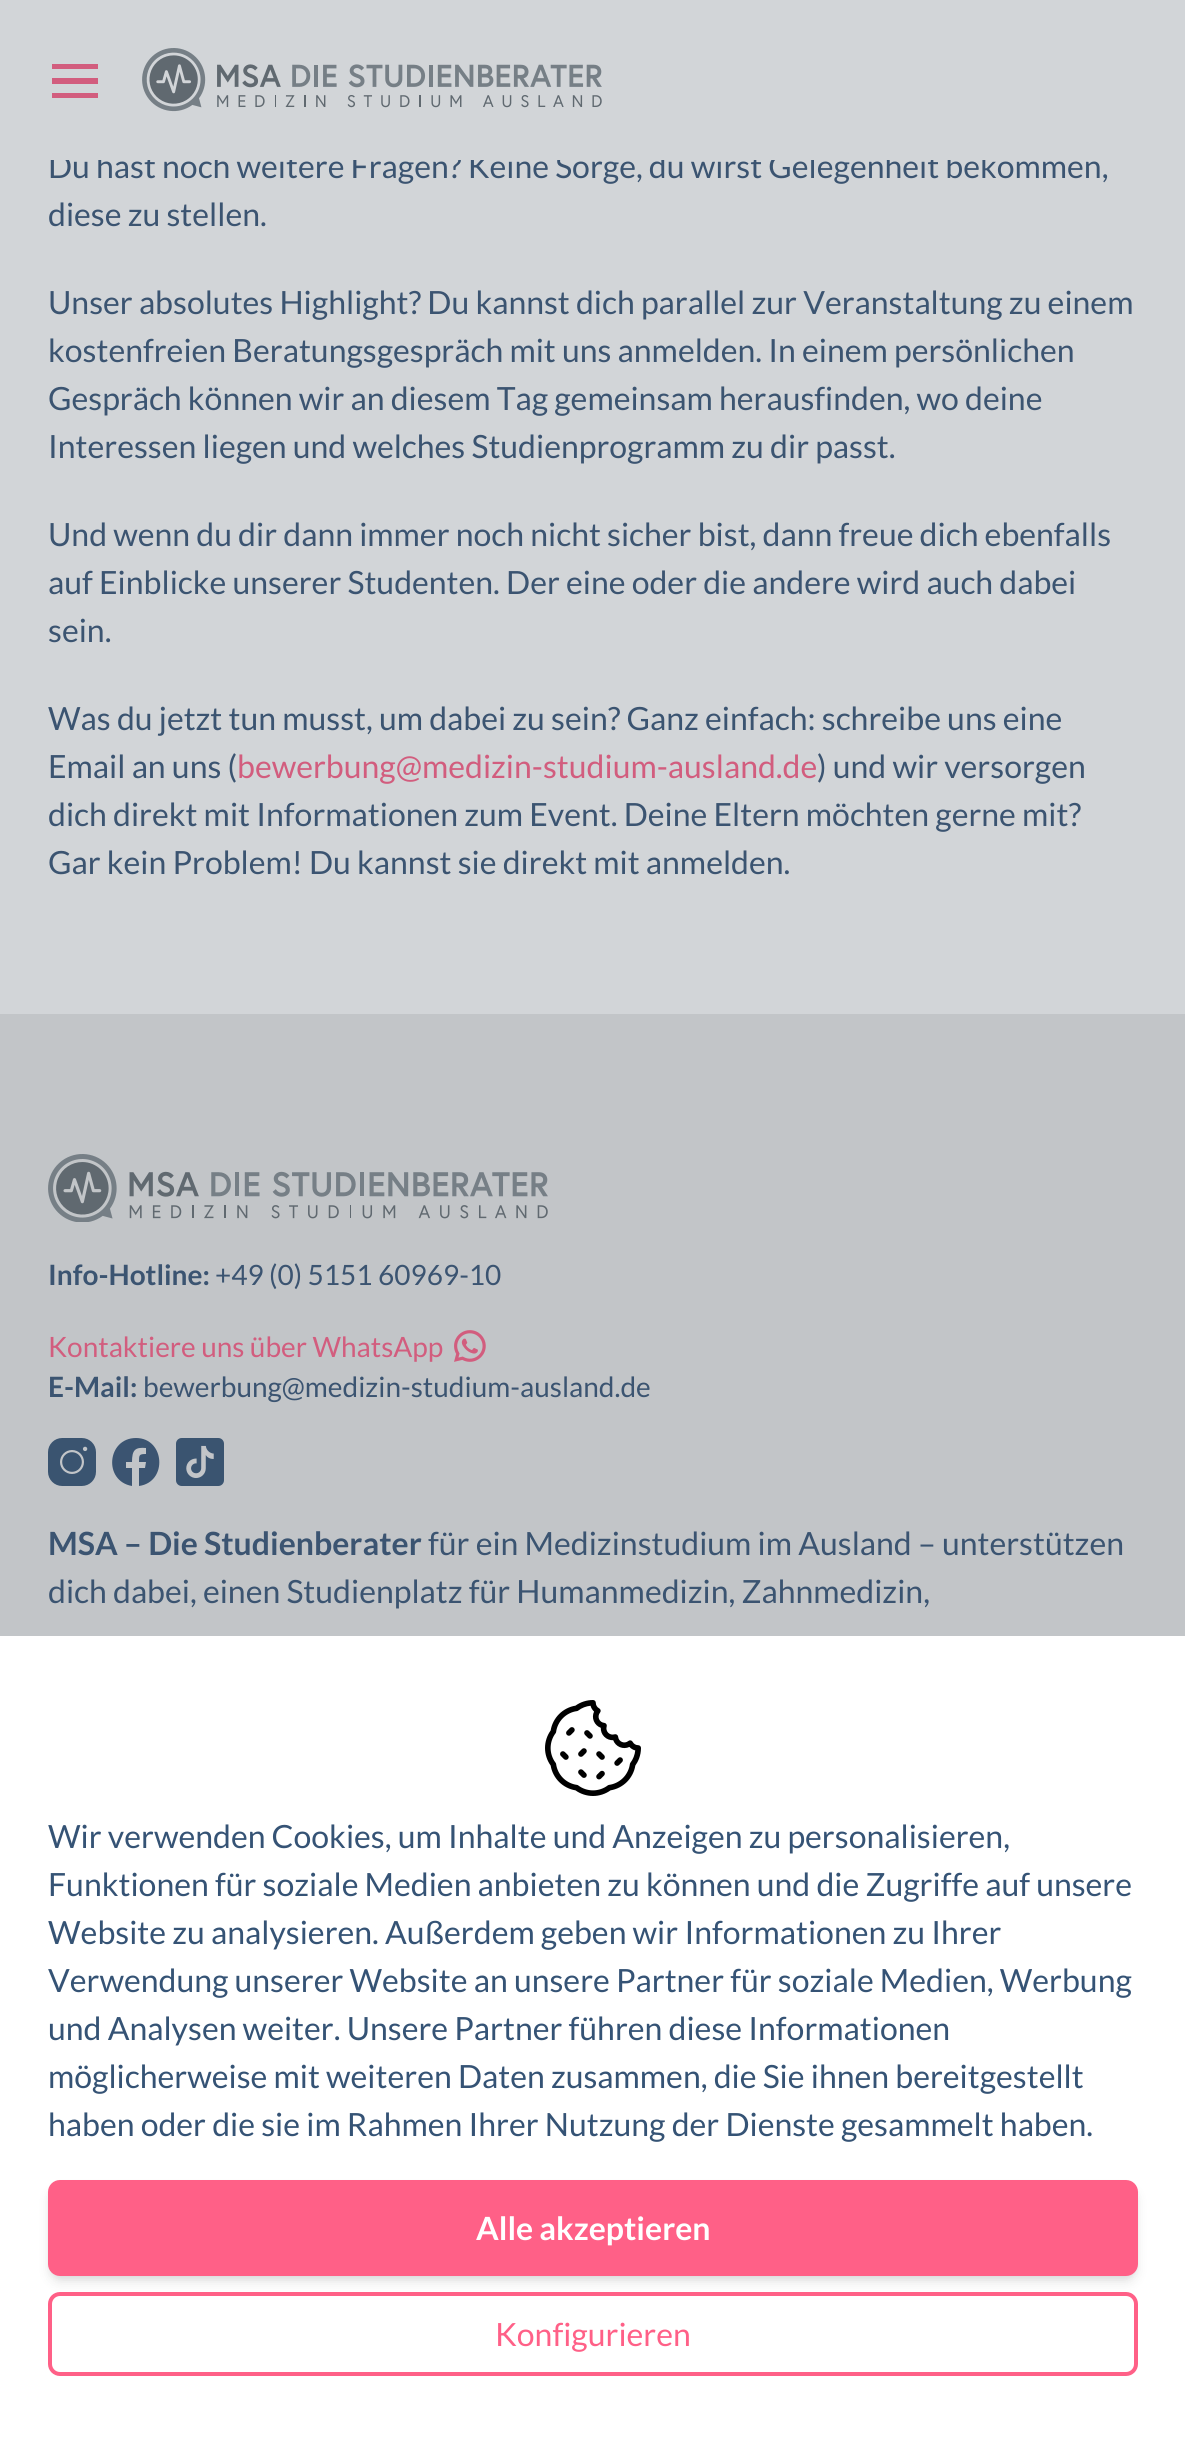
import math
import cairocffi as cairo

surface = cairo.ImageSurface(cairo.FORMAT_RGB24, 1185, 2439)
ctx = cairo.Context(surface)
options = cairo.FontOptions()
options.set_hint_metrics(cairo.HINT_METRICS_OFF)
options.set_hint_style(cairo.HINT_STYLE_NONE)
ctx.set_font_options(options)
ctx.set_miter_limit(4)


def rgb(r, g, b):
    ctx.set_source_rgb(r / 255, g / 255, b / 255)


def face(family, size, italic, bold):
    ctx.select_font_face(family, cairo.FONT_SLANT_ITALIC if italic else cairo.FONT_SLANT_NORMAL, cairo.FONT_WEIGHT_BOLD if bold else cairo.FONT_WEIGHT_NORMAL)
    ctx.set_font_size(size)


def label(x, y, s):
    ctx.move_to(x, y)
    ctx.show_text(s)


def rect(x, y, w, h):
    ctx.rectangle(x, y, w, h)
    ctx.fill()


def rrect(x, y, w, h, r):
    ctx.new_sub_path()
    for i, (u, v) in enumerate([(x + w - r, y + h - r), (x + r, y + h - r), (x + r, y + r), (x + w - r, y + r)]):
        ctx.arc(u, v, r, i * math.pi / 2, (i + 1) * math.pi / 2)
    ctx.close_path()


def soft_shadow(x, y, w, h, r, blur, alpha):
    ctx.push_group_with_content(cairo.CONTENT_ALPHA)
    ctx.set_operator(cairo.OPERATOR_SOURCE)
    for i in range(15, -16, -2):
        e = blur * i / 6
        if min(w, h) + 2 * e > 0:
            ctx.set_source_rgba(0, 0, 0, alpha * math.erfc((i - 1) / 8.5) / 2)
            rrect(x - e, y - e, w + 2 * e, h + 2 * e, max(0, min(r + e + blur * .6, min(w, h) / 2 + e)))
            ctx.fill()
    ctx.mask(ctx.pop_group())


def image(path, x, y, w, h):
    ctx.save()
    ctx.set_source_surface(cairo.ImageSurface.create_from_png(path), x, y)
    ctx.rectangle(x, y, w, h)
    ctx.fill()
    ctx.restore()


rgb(210, 213, 216)
ctx.paint()
face('Lato', 32, 0, 0)
rgb(59, 84, 113)
label(48, 178, 'Du hast noch weitere Fragen? Keine Sorge, du wirst Gelegenheit bekommen,')
rgb(210, 213, 216)
rect(50, 154, 936, 6)
rgb(210, 93, 126)
ctx.new_path()
ctx.move_to(52, 64)
ctx.line_to(98, 64)
ctx.line_to(98, 69)
ctx.line_to(52, 69)
ctx.close_path()
ctx.move_to(52, 78)
ctx.line_to(98, 78)
ctx.line_to(98, 84)
ctx.line_to(52, 84)
ctx.close_path()
ctx.move_to(52, 93)
ctx.line_to(98, 93)
ctx.line_to(98, 98)
ctx.line_to(52, 98)
ctx.close_path()
ctx.fill()
image('image0.png', 142, 48, 460, 64)
rgb(59, 84, 113)
label(48, 226, 'diese zu stellen.')
label(48, 314, 'Unser absolutes Highlight? Du kannst dich parallel zur Veranstaltung zu einem')
label(48, 362, 'kostenfreien Beratungsgespräch mit uns anmelden. In einem persönlichen')
label(48, 410, 'Gespräch können wir an diesem Tag gemeinsam herausfinden, wo deine')
label(48, 458, 'Interessen liegen und welches Studienprogramm zu dir passt.')
label(48, 546, 'Und wenn du dir dann immer noch nicht sicher bist, dann freue dich ebenfalls')
label(48, 594, 'auf Einblicke unserer Studenten. Der eine oder die andere wird auch dabei')
label(48, 642, 'sein.')
label(48, 730, 'Was du jetzt tun musst, um dabei zu sein? Ganz einfach: schreibe uns eine')
label(48, 778, 'Email an uns (')
rgb(210, 93, 126)
label(237, 778, 'bewerbung@medizin-studium-ausland.de')
rgb(59, 84, 113)
label(817, 778, ') und wir versorgen')
label(48, 826, 'dich direkt mit Informationen zum Event. Deine Eltern möchten gerne mit?')
label(48, 874, 'Gar kein Problem! Du kannst sie direkt mit anmelden.')
rgb(194, 197, 200)
rect(0, 1014, 1185, 622)
image('image1.png', 48, 1154, 500, 68)
face('Lato', 28, 0, 1)
rgb(59, 84, 113)
label(48, 1285, 'Info-Hotline:')
face('Lato', 28, 0, 0)
label(215, 1285, '+49 (0) 5151 60969-10')
rgb(210, 93, 126)
label(48, 1357, 'Kontaktiere uns über WhatsApp')
image('image2.png', 454, 1330, 32, 32)
face('Lato', 28, 0, 1)
rgb(59, 84, 113)
label(48, 1397, 'E-Mail:')
face('Lato', 28, 0, 0)
label(143, 1397, 'bewerbung@medizin-studium-ausland.de')
image('image3.png', 48, 1438, 48, 48)
ctx.new_path()
ctx.move_to(136, 1438)
ctx.curve_to(107, 1438, 103, 1481, 132, 1486)
ctx.line_to(132, 1468)
ctx.line_to(126, 1468)
ctx.line_to(126, 1462)
ctx.line_to(132, 1462)
ctx.curve_to(132, 1450, 135, 1447, 146, 1448)
ctx.line_to(146, 1454)
ctx.curve_to(139, 1454, 139, 1455, 139, 1462)
ctx.line_to(146, 1462)
ctx.line_to(145, 1468)
ctx.line_to(139, 1468)
ctx.line_to(139, 1486)
ctx.curve_to(168, 1482, 165, 1438, 136, 1438)
ctx.close_path()
ctx.fill()
image('image4.png', 176, 1438, 48, 48)
face('Lato', 32, 0, 1)
label(48, 1555, 'MSA – Die Studienberater')
face('Lato', 32, 0, 0)
label(428, 1555, 'für ein Medizinstudium im Ausland – unterstützen')
label(48, 1603, 'dich dabei, einen Studienplatz für Humanmedizin, Zahnmedizin,')
rgb(255, 255, 255)
rect(0, 1636, 1185, 803)
image('image5.png', 545, 1700, 96, 96)
rgb(53, 83, 117)
label(48, 1848, 'Wir verwenden Cookies, um Inhalte und Anzeigen zu personalisieren,')
label(48, 1896, 'Funktionen für soziale Medien anbieten zu können und die Zugriffe auf unsere')
label(48, 1944, 'Website zu analysieren. Außerdem geben wir Informationen zu Ihrer')
label(48, 1992, 'Verwendung unserer Website an unsere Partner für soziale Medien, Werbung')
label(48, 2040, 'und Analysen weiter. Unsere Partner führen diese Informationen')
label(48, 2088, 'möglicherweise mit weiteren Daten zusammen, die Sie ihnen bereitgestellt')
label(48, 2136, 'haben oder die sie im Rahmen Ihrer Nutzung der Dienste gesammelt haben.')
rgb(0, 0, 0)
soft_shadow(52, 2188, 1082, 88, 8, 4, 0.1)
soft_shadow(50, 2190, 1086, 92, 10, 6, 0.1)
rgb(255, 96, 135)
rrect(48, 2180, 1090, 96, 12)
ctx.fill()
face('Lato', 32, 0, 1)
rgb(255, 255, 255)
label(476, 2240, 'Alle akzeptieren')
rrect(50, 2294, 1086, 80, 10)
rgb(255, 96, 135)
ctx.set_line_width(4)
ctx.stroke()
face('Lato', 32, 0, 0)
label(495, 2346, 'Konfigurieren')
surface.write_to_png('render.png')
